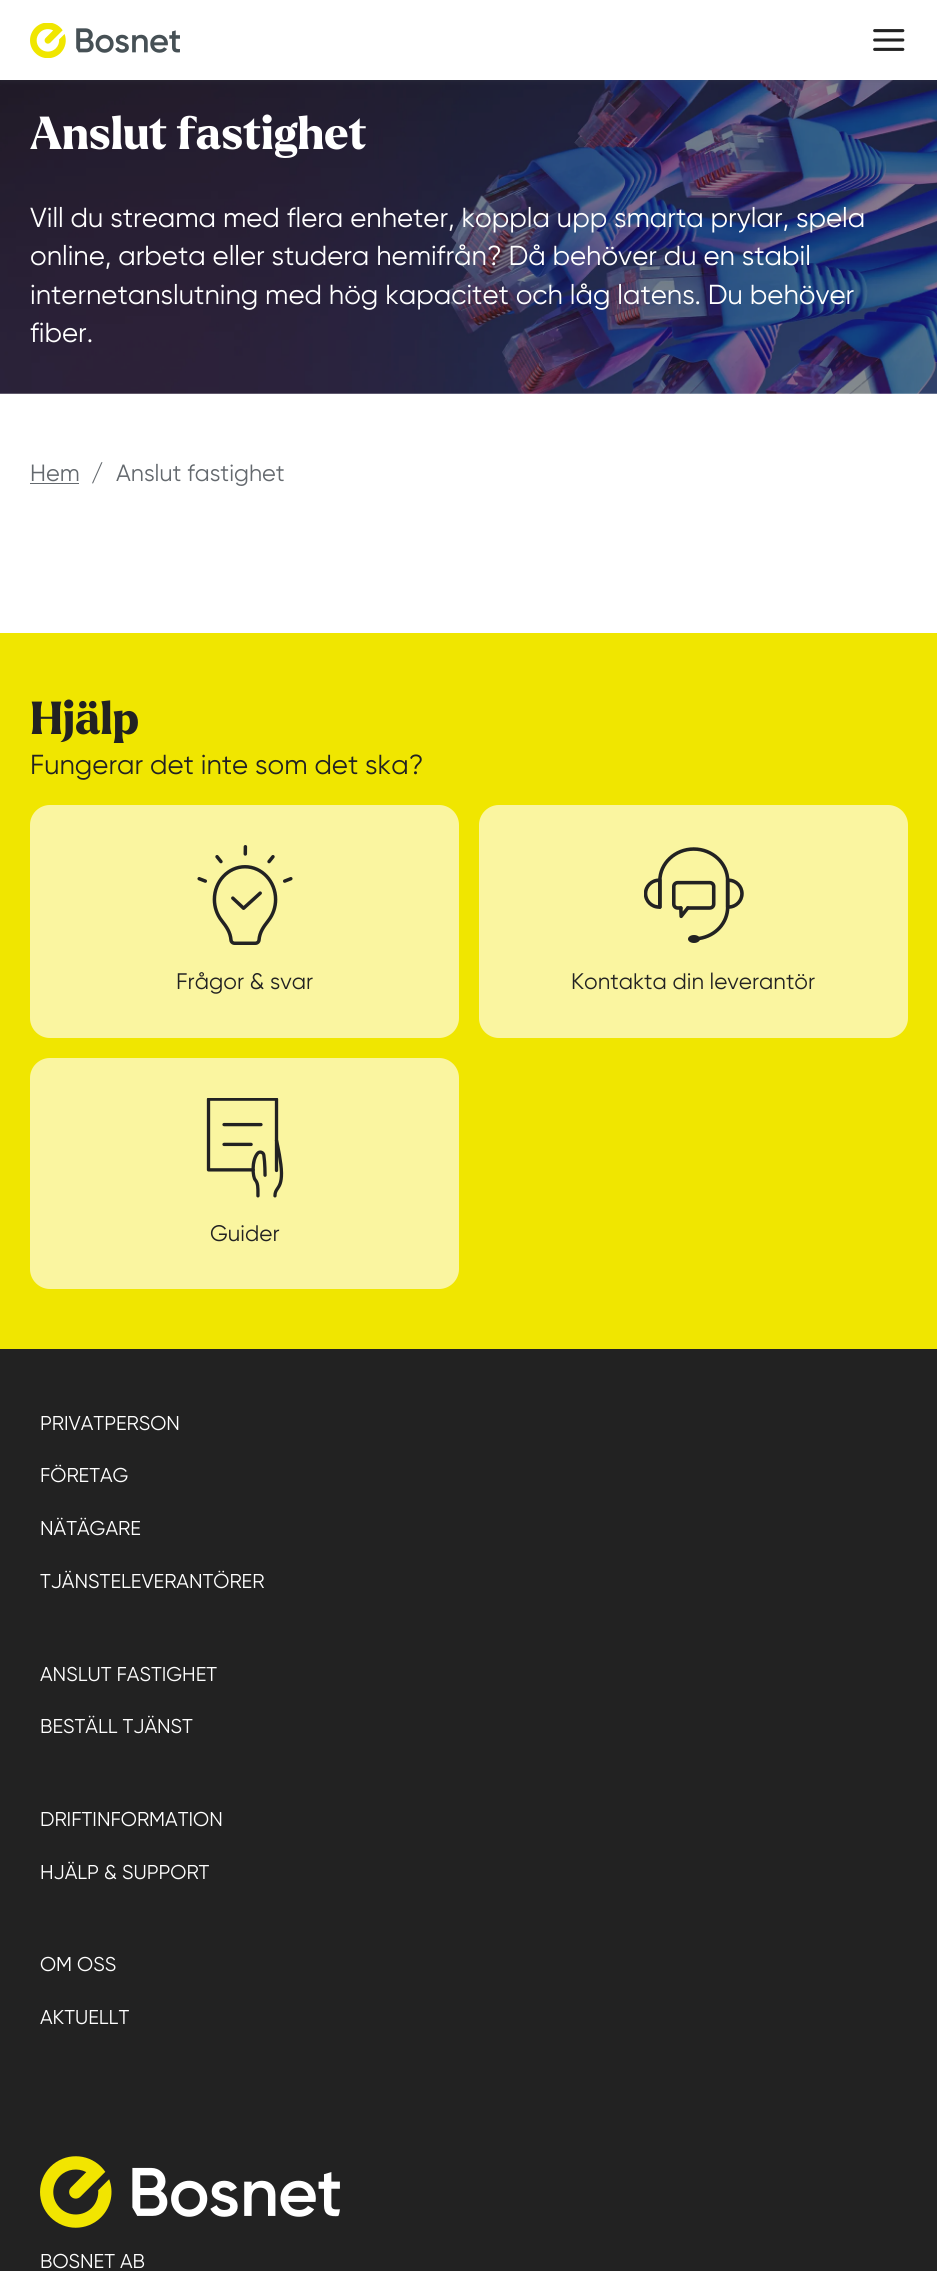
import math
import cairocffi as cairo

surface = cairo.ImageSurface(cairo.FORMAT_RGB24, 937, 2271)
ctx = cairo.Context(surface)
options = cairo.FontOptions()
options.set_hint_metrics(cairo.HINT_METRICS_OFF)
options.set_hint_style(cairo.HINT_STYLE_NONE)
ctx.set_font_options(options)
ctx.set_miter_limit(4)


def rgb(r, g, b):
    ctx.set_source_rgb(r / 255, g / 255, b / 255)


def face(family, size, italic, bold):
    ctx.select_font_face(family, cairo.FONT_SLANT_ITALIC if italic else cairo.FONT_SLANT_NORMAL, cairo.FONT_WEIGHT_BOLD if bold else cairo.FONT_WEIGHT_NORMAL)
    ctx.set_font_size(size)


def label(x, y, s):
    ctx.move_to(x, y)
    ctx.show_text(s)


def rect(x, y, w, h):
    ctx.rectangle(x, y, w, h)
    ctx.fill()


def rrect(x, y, w, h, r):
    ctx.new_sub_path()
    for i, (u, v) in enumerate([(x + w - r, y + h - r), (x + r, y + h - r), (x + r, y + r), (x + w - r, y + r)]):
        ctx.arc(u, v, r, i * math.pi / 2, (i + 1) * math.pi / 2)
    ctx.close_path()


def soft_shadow(x, y, w, h, r, blur, alpha):
    ctx.push_group_with_content(cairo.CONTENT_ALPHA)
    ctx.set_operator(cairo.OPERATOR_SOURCE)
    for i in range(15, -16, -2):
        e = blur * i / 6
        if min(w, h) + 2 * e > 0:
            ctx.set_source_rgba(0, 0, 0, alpha * math.erfc((i - 1) / 8.5) / 2)
            rrect(x - e, y - e, w + 2 * e, h + 2 * e, max(0, min(r + e + blur * .6, min(w, h) / 2 + e)))
            ctx.fill()
    ctx.mask(ctx.pop_group())


def image(path, x, y, w, h):
    ctx.save()
    ctx.set_source_surface(cairo.ImageSurface.create_from_png(path), x, y)
    ctx.rectangle(x, y, w, h)
    ctx.fill()
    ctx.restore()


rgb(255, 255, 255)
ctx.paint()
image('image2.png', 0, 80, 937, 314)
rgb(72, 81, 86)
soft_shadow(0, 1, 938, 80, 0, 2.5, 0.2)
rgb(255, 255, 255)
rect(0, 0, 937, 80)
image('image0.png', 30, 23, 150, 35)
image('image1.png', 873, 29, 32, 22)
face('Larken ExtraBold', 45, 0, 0)
label(30, 149, 'Anslut fastighet')
face('Gilroy', 27.5, 0, 0)
label(30, 227, 'Vill du streama med flera enheter, koppla upp smarta prylar, spela')
label(30, 265, 'online, arbeta eller studera hemifrån? Då behöver du en stabil')
label(30, 304, 'internetanslutning med hög kapacitet och låg latens. Du behöver')
label(30, 342, 'fiber.')
face('Gilroy', 23.5, 0, 0)
rgb(100, 105, 110)
label(30, 481, 'Hem')
rect(30, 483, 49, 1)
label(91, 481, '/')
label(116, 481, 'Anslut fastighet')
rgb(240, 230, 0)
rect(0, 633, 937, 716)
face('Larken ExtraBold', 45, 0, 0)
rgb(34, 34, 34)
label(30, 734, 'Hjälp')
face('Gilroy', 27.5, 0, 0)
label(30, 774, 'Fungerar det inte som det ska?')
rgb(250, 245, 160)
rrect(30, 805, 429, 233, 20)
ctx.fill()
image('image3.png', 197, 845, 96, 100)
face('Gilroy', 22.5, 0, 0)
rgb(34, 34, 34)
label(176, 989, 'Frågor & svar')
rgb(250, 245, 160)
rrect(479, 805, 429, 233, 20)
ctx.fill()
image('image4.png', 644, 847, 100, 96)
rgb(34, 34, 34)
label(571, 989, 'Kontakta din leverantör')
rgb(250, 245, 160)
rrect(30, 1058, 429, 231, 20)
ctx.fill()
image('image5.png', 206, 1098, 78, 100)
rgb(34, 34, 34)
label(210, 1241, 'Guider')
rect(0, 1349, 937, 922)
face('Gilroy', 20, 0, 0)
rgb(255, 255, 255)
label(40, 1430, 'PRIVATPERSON')
label(40, 1482, 'FÖRETAG')
label(40, 1535, 'NÄTÄGARE')
label(40, 1588, 'TJÄNSTELEVERANTÖRER')
label(40, 1681, 'ANSLUT FASTIGHET')
label(40, 1733, 'BESTÄLL TJÄNST')
label(40, 1826, 'DRIFTINFORMATION')
label(40, 1879, 'HJÄLP & SUPPORT')
label(40, 1971, 'OM OSS')
label(40, 2024, 'AKTUELLT')
image('image6.png', 40, 2156, 300, 72)
label(40, 2268, 'BOSNET AB')
surface.write_to_png('render.png')
